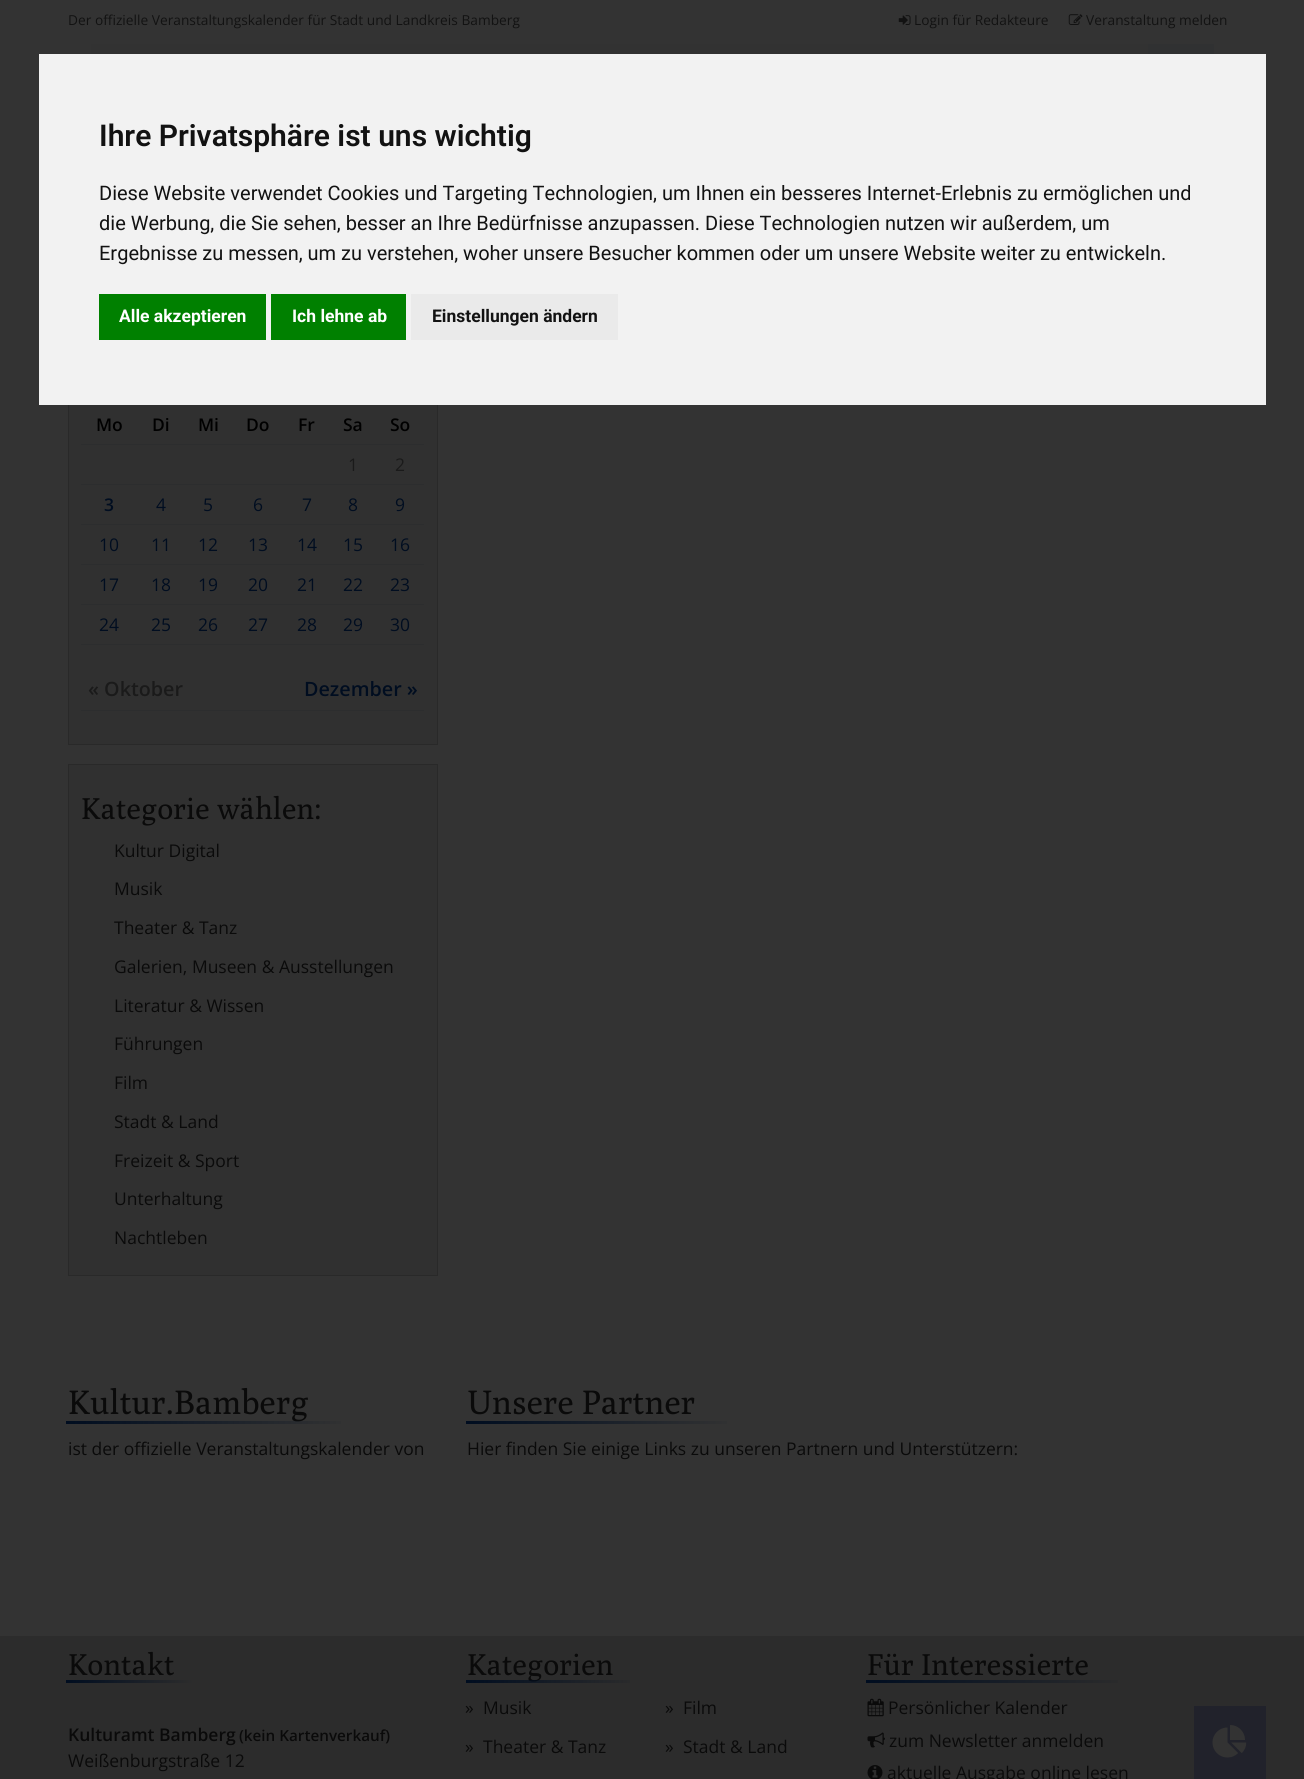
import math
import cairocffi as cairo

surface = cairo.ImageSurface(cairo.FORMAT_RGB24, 1304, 1779)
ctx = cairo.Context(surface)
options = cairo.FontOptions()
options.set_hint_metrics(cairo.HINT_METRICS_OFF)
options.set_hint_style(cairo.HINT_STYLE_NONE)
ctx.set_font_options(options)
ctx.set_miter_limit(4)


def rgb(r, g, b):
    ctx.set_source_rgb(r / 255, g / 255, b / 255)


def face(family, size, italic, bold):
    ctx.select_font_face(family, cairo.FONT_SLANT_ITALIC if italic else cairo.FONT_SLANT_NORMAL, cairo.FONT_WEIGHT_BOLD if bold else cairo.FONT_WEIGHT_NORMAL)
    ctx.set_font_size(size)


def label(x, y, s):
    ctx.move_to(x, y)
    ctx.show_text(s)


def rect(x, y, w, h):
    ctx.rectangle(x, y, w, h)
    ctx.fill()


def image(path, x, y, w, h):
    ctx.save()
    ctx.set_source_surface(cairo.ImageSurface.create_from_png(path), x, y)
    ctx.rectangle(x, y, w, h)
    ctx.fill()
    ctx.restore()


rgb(51, 51, 51)
ctx.paint()
ctx.rectangle(91.5, 43.5, 642, 51)
rgb(44, 45, 46)
ctx.set_line_width(1)
ctx.stroke()
ctx.rectangle(764.5, 43.5, 353, 51)
ctx.stroke()
rgb(51, 51, 51)
rect(91, 43, 1027, 1)
face('Open Sans', 13.75, 0, 0)
rgb(18, 18, 18)
label(68, 25, 'Der offizielle Veranstaltungskalender für Stadt und Landkreis Bamberg')
image('image0.png', 898, 15, 13, 10)
label(914, 25, 'Login für Redakteure')
image('image1.png', 1068, 14, 15, 11)
label(1086, 25, 'Veranstaltung melden')
rgb(0, 13, 32)
rect(1148, 44, 66, 10)
ctx.set_source_rgba(0.2, 0.2, 0.2, 0.95)
rect(91, 44, 1123, 51)
rgb(48, 48, 48)
rect(69, 405, 368, 339)
ctx.rectangle(68.5, 279.5, 369, 465)
rgb(41, 41, 41)
ctx.stroke()
rgb(242, 242, 242)
rect(39, 54, 1227, 351)
face('Roboto SemiBold', 30, 0, 0)
rgb(18, 18, 18)
label(99, 146, 'Ihre Privatsphäre ist uns wichtig')
face('Roboto', 20, 0, 0)
label(99, 200, 'Diese Website verwendet Cookies und Targeting Technologien, um Ihnen ein besseres Internet-Erlebnis zu ermöglichen und')
label(99, 230, 'die Werbung, die Sie sehen, besser an Ihre Bedürfnisse anzupassen. Diese Technologien nutzen wir außerdem, um')
label(99, 260, 'Ergebnisse zu messen, um zu verstehen, woher unsere Besucher kommen oder um unsere Website weiter zu entwickeln.')
rgb(0, 128, 0)
rect(99, 294, 167, 46)
face('Roboto', 17.5, 0, 1)
rgb(255, 255, 255)
label(119, 322, 'Alle akzeptieren')
rgb(0, 128, 0)
rect(271, 294, 135, 46)
rgb(255, 255, 255)
label(292, 322, 'Ich lehne ab')
rgb(234, 234, 234)
rect(411, 294, 207, 46)
rgb(18, 18, 18)
label(432, 322, 'Einstellungen ändern')
face('Open Sans SemiBold', 17.5, 0, 0)
rgb(0, 0, 0)
label(96, 431, 'Mo')
label(152, 431, 'Di')
label(198, 431, 'Mi')
label(246, 431, 'Do')
label(298, 431, 'Fr')
label(343, 431, 'Sa')
rgb(44, 45, 46)
rect(81, 444, 343, 1)
rgb(0, 0, 0)
label(390, 431, 'So')
face('Open Sans', 17.5, 0, 0)
rgb(26, 26, 26)
label(348, 471, '1')
rgb(44, 45, 46)
rect(81, 484, 343, 1)
rgb(26, 26, 26)
label(395, 471, '2')
face('Open Sans SemiBold', 17.5, 0, 0)
rgb(0, 13, 32)
label(104, 511, '3')
face('Open Sans', 17.5, 0, 0)
label(156, 511, '4')
label(203, 511, '5')
label(253, 511, '6')
label(302, 511, '7')
label(348, 511, '8')
rgb(44, 45, 46)
rect(81, 524, 343, 1)
rgb(0, 13, 32)
label(395, 511, '9')
label(99, 551, '10')
label(151, 551, '11')
label(198, 551, '12')
label(248, 551, '13')
label(297, 551, '14')
label(343, 551, '15')
rgb(44, 45, 46)
rect(81, 564, 343, 1)
rgb(0, 13, 32)
label(390, 551, '16')
label(99, 591, '17')
label(151, 591, '18')
label(198, 591, '19')
label(248, 591, '20')
label(297, 591, '21')
label(343, 591, '22')
rgb(44, 45, 46)
rect(81, 604, 343, 1)
rgb(0, 13, 32)
label(390, 591, '23')
label(99, 631, '24')
label(151, 631, '25')
label(198, 631, '26')
label(248, 631, '27')
label(297, 631, '28')
label(343, 631, '29')
rgb(44, 45, 46)
rect(81, 644, 343, 1)
rgb(0, 13, 32)
label(390, 631, '30')
face('Open Sans SemiBold', 19.75, 0, 0)
rgb(26, 26, 26)
label(88, 696, '« Oktober')
rgb(44, 45, 46)
rect(81, 710, 343, 1)
rgb(0, 13, 32)
label(304, 696, 'Dezember »')
rgb(48, 48, 48)
ctx.rectangle(68.5, 764.5, 369, 511)
ctx.fill_preserve()
rgb(41, 41, 41)
ctx.stroke()
face('Poly', 30, 0, 0)
rgb(10, 10, 10)
label(81, 819, 'Kategorie wählen:')
face('Open Sans', 17.5, 0, 0)
label(114, 857, 'Kultur Digital')
label(114, 895, 'Musik')
label(114, 934, 'Theater & Tanz')
label(114, 973, 'Galerien, Museen & Ausstellungen')
label(114, 1012, 'Literatur & Wissen')
label(114, 1050, 'Führungen')
label(114, 1089, 'Film')
label(114, 1128, 'Stadt & Land')
label(114, 1167, 'Freizeit & Sport')
label(114, 1205, 'Unterhaltung')
label(114, 1244, 'Nachtleben')
face('Poly', 33.75, 0, 0)
label(68, 1414, 'Kultur.Bamberg')
gradient = cairo.LinearGradient(66, 1423, 356, 1423)
gradient.add_color_stop_rgba(0, 0, 0.051, 0.125, 1)
gradient.add_color_stop_rgba(1, 0, 0.051, 0.125, 0)
ctx.set_source(gradient)
rect(66, 1421, 275, 3)
face('Open Sans', 17.5, 0, 0)
rgb(10, 10, 10)
label(68, 1455, 'ist der offizielle Veranstaltungskalender von')
face('Poly', 33.75, 0, 0)
label(467, 1414, 'Unsere Partner')
gradient = cairo.LinearGradient(466, 1423, 740, 1423)
gradient.add_color_stop_rgba(0, 0, 0.051, 0.125, 1)
gradient.add_color_stop_rgba(1, 0.2, 0.2, 0.2, 1)
ctx.set_source(gradient)
rect(466, 1421, 261, 3)
face('Open Sans', 17.5, 0, 0)
rgb(10, 10, 10)
label(467, 1455, 'Hier finden Sie einige Links zu unseren Partnern und Unterstützern:')
rgb(44, 44, 44)
rect(0, 1636, 1304, 143)
face('Poly', 30, 0, 0)
rgb(10, 10, 10)
label(68, 1675, 'Kontakt')
gradient = cairo.LinearGradient(66, 1681, 194, 1681)
gradient.add_color_stop_rgba(0, 0, 0.051, 0.125, 1)
gradient.add_color_stop_rgba(1, 0.173, 0.173, 0.173, 1)
ctx.set_source(gradient)
rect(66, 1680, 128, 3)
face('Open Sans SemiBold', 17.5, 0, 0)
rgb(10, 10, 10)
label(68, 1741, 'Kulturamt Bamberg')
face('Open Sans SemiBold', 15.25, 0, 0)
label(239, 1741, '(kein Kartenverkauf)')
face('Open Sans', 17.5, 0, 0)
label(68, 1767, 'Weißenburgstraße 12')
face('Poly', 30, 0, 0)
label(467, 1675, 'Kategorien')
gradient = cairo.LinearGradient(466, 1681, 641, 1681)
gradient.add_color_stop_rgba(0, 0, 0.051, 0.125, 1)
gradient.add_color_stop_rgba(1, 0, 0.051, 0.125, 0)
ctx.set_source(gradient)
rect(466, 1680, 164, 3)
face('Open Sans', 17.5, 0, 0)
rgb(10, 10, 10)
label(465, 1714, '»')
label(483, 1714, 'Musik')
label(465, 1753, '»')
label(483, 1753, 'Theater & Tanz')
label(665, 1714, '»')
label(683, 1714, 'Film')
label(665, 1753, '»')
label(683, 1753, 'Stadt & Land')
face('Poly', 30, 0, 0)
label(867, 1675, 'Für Interessierte')
gradient = cairo.LinearGradient(866, 1681, 1133, 1681)
gradient.add_color_stop_rgba(0, 0, 0.051, 0.125, 1)
gradient.add_color_stop_rgba(1, 0.173, 0.173, 0.173, 1)
ctx.set_source(gradient)
rect(866, 1680, 252, 3)
image('image2.png', 867, 1698, 17, 19)
face('Open Sans', 17.5, 0, 0)
rgb(10, 10, 10)
label(888, 1714, 'Persönlicher Kalender')
image('image3.png', 867, 1732, 18, 16)
label(889, 1747, 'zum Newsletter anmelden')
image('image4.png', 867, 1765, 16, 14)
label(887, 1779, 'aktuelle Ausgabe online lesen')
rgb(33, 34, 43)
rect(1194, 1706, 72, 73)
image('image5.png', 1212, 1725, 35, 33)
surface.write_to_png('render.png')
